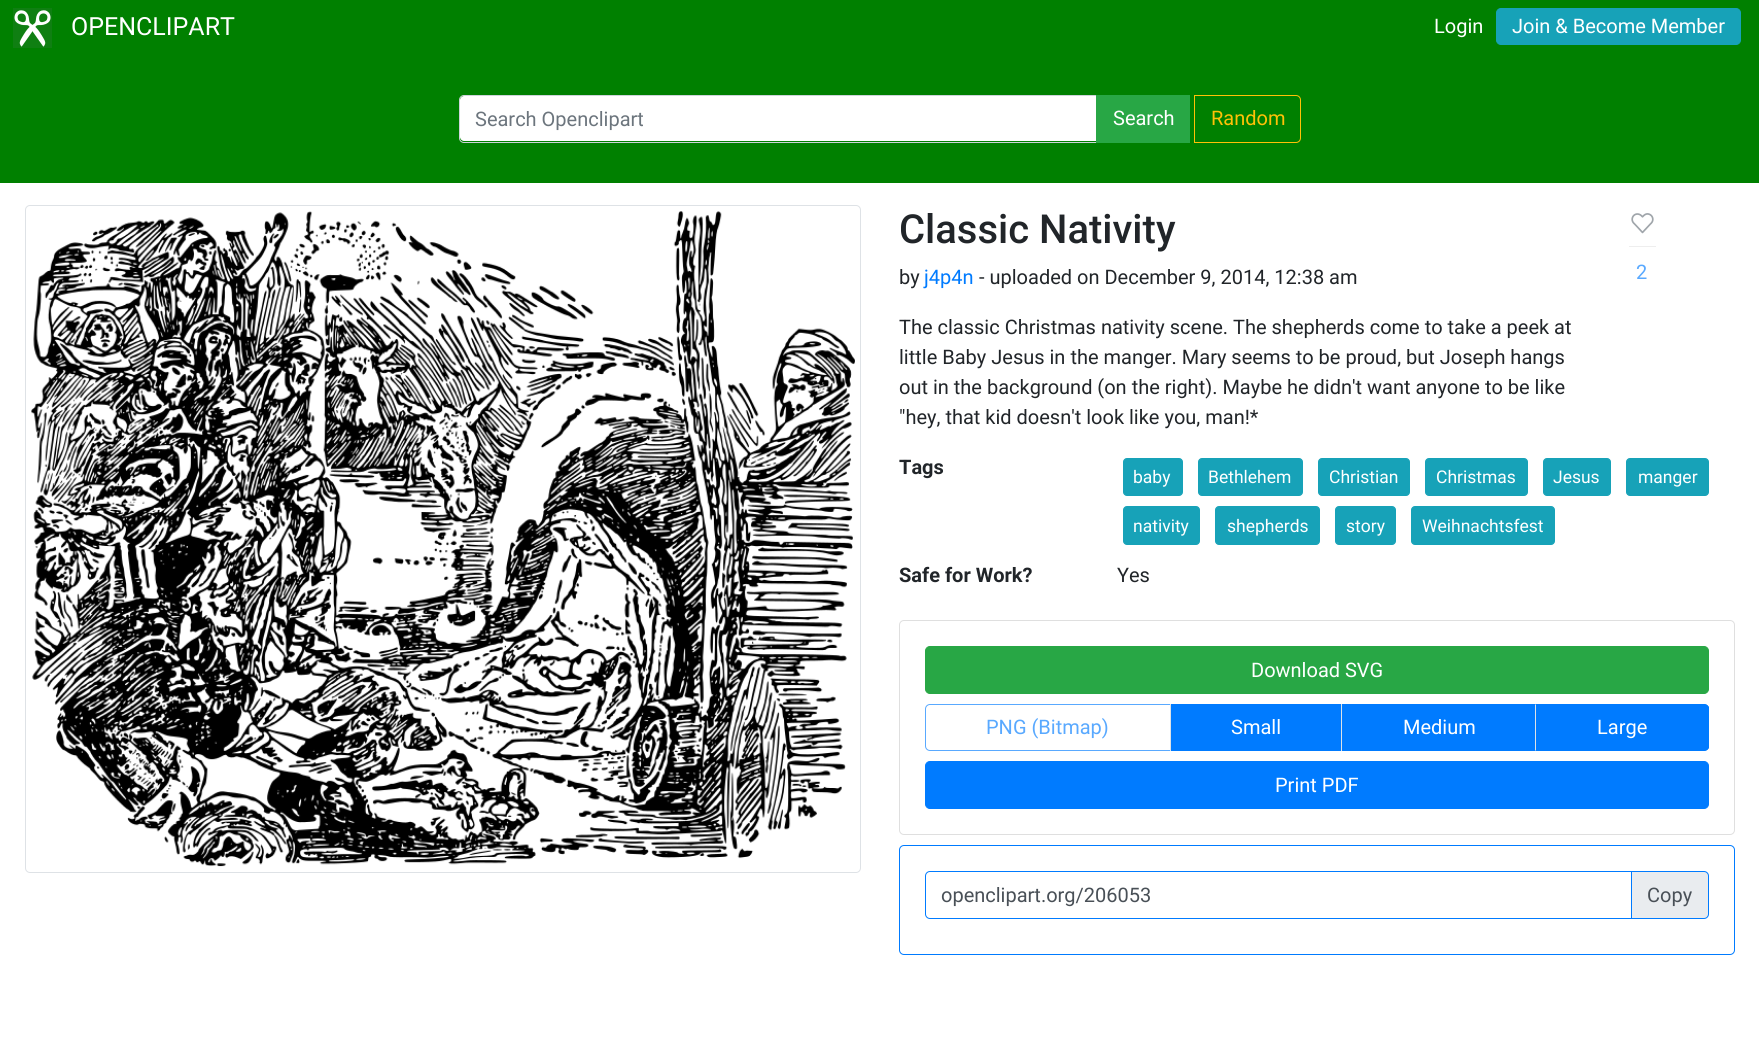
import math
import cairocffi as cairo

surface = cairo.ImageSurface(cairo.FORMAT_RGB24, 1759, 1046)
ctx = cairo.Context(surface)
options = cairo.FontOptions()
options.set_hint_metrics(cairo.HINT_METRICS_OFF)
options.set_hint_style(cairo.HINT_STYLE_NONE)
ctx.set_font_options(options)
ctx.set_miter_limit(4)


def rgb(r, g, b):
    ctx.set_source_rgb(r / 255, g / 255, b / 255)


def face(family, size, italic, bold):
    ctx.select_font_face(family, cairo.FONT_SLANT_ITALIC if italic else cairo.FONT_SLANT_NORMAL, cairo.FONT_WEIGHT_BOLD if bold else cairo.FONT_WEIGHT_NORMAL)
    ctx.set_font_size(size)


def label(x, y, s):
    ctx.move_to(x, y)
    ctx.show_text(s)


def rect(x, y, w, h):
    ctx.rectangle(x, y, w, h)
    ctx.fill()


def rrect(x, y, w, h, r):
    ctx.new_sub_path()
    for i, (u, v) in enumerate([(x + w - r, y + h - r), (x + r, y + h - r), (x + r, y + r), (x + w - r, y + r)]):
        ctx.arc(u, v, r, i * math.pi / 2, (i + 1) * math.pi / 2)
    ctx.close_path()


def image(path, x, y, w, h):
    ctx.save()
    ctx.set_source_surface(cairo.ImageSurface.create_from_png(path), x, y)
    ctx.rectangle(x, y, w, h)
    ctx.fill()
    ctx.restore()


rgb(255, 255, 255)
ctx.paint()
rgb(0, 128, 0)
rect(0, 0, 1759, 183)
image('image0.png', 13, 8, 39, 40)
face('Roboto', 25, 0, 0)
rgb(255, 255, 255)
label(71, 35, 'OPENCLIPART')
face('Roboto', 20, 0, 0)
label(1434, 33, 'Login')
rgb(23, 162, 184)
rrect(1496.5, 8.5, 244, 36, 4.5)
ctx.fill_preserve()
ctx.set_line_width(1)
ctx.stroke()
rgb(255, 255, 255)
label(1512, 33, 'Join & Become Member')
ctx.new_path()
ctx.move_to(464, 96)
ctx.line_to(1096, 96)
ctx.line_to(1096, 141)
ctx.line_to(464, 141)
ctx.curve_to(462, 141, 460, 139, 460, 137)
ctx.line_to(460, 100)
ctx.curve_to(460, 98, 462, 96, 464, 96)
ctx.close_path()
ctx.fill()
ctx.new_path()
ctx.move_to(464, 95.5)
ctx.line_to(1097.5, 95.5)
ctx.line_to(1097.5, 142.5)
ctx.line_to(464, 142.5)
ctx.curve_to(461.5, 142.5, 459.5, 140.5, 459.5, 138)
ctx.line_to(459.5, 100)
ctx.curve_to(459.5, 97.5, 461.5, 95.5, 464, 95.5)
ctx.close_path()
rgb(206, 212, 218)
ctx.stroke()
rgb(108, 117, 125)
label(475, 126, 'Search Openclipart')
rgb(40, 167, 69)
rect(1096, 95, 94, 48)
rgb(255, 255, 255)
label(1113, 125, 'Search')
ctx.new_path()
ctx.move_to(1194.5, 95.5)
ctx.line_to(1296, 95.5)
ctx.curve_to(1298.5, 95.5, 1300.5, 97.5, 1300.5, 100)
ctx.line_to(1300.5, 138)
ctx.curve_to(1300.5, 140.5, 1298.5, 142.5, 1296, 142.5)
ctx.line_to(1194.5, 142.5)
ctx.close_path()
rgb(255, 193, 7)
ctx.stroke()
label(1211, 125, 'Random')
rrect(25.5, 205.5, 835, 667, 4.5)
rgb(222, 226, 230)
ctx.stroke()
image('image1.png', 31, 211, 824, 656)
face('Roboto Medium', 40, 0, 0)
rgb(33, 37, 41)
label(899, 243, 'Classic Nativity')
face('Roboto', 20, 0, 0)
label(899, 284, 'by')
rgb(0, 123, 255)
label(924, 284, 'j4p4n')
rgb(33, 37, 41)
label(979, 284, '- uploaded on December 9, 2014, 12:38 am')
label(899, 334, 'The classic Christmas nativity scene. The shepherds come to take a peek at')
label(899, 364, 'little Baby Jesus in the manger. Mary seems to be proud, but Joseph hangs')
label(899, 394, 'out in the background (on the right). Maybe he didn\'t want anyone to be like')
label(899, 424, '"hey, that kid doesn\'t look like you, man!*')
image('image2.png', 1631, 213, 23, 21)
rgb(238, 238, 238)
rect(1629, 246, 27, 1)
rgb(89, 169, 255)
label(1636, 279, '2')
face('Roboto', 20, 0, 1)
rgb(33, 37, 41)
label(899, 474, 'Tags')
rgb(23, 162, 184)
rrect(1123.5, 458.5, 59, 37, 3.5)
ctx.fill_preserve()
ctx.stroke()
face('Roboto', 17.5, 0, 0)
rgb(255, 255, 255)
label(1133, 483, 'baby')
rgb(23, 162, 184)
rrect(1198.5, 458.5, 104, 37, 3.5)
ctx.fill_preserve()
ctx.stroke()
rgb(255, 255, 255)
label(1208, 483, 'Bethlehem')
rgb(23, 162, 184)
rrect(1318.5, 458.5, 91, 37, 3.5)
ctx.fill_preserve()
ctx.stroke()
rgb(255, 255, 255)
label(1329, 483, 'Christian')
rgb(23, 162, 184)
rrect(1425.5, 458.5, 102, 37, 3.5)
ctx.fill_preserve()
ctx.stroke()
rgb(255, 255, 255)
label(1436, 483, 'Christmas')
rgb(23, 162, 184)
rrect(1543.5, 458.5, 67, 37, 3.5)
ctx.fill_preserve()
ctx.stroke()
rgb(255, 255, 255)
label(1553, 483, 'Jesus')
rgb(23, 162, 184)
rrect(1626.5, 458.5, 82, 37, 3.5)
ctx.fill_preserve()
ctx.stroke()
rgb(255, 255, 255)
label(1638, 483, 'manger')
rgb(23, 162, 184)
rrect(1123.5, 506.5, 76, 38, 3.5)
ctx.fill_preserve()
ctx.stroke()
rgb(255, 255, 255)
label(1133, 532, 'nativity')
rgb(23, 162, 184)
rrect(1215.5, 506.5, 104, 38, 3.5)
ctx.fill_preserve()
ctx.stroke()
rgb(255, 255, 255)
label(1227, 532, 'shepherds')
rgb(23, 162, 184)
rrect(1335.5, 506.5, 60, 38, 3.5)
ctx.fill_preserve()
ctx.stroke()
rgb(255, 255, 255)
label(1346, 532, 'story')
rgb(23, 162, 184)
rrect(1411.5, 506.5, 143, 38, 3.5)
ctx.fill_preserve()
ctx.stroke()
rgb(255, 255, 255)
label(1422, 532, 'Weihnachtsfest')
face('Roboto', 20, 0, 1)
rgb(33, 37, 41)
label(899, 582, 'Safe for Work?')
face('Roboto', 20, 0, 0)
label(1117, 582, 'Yes')
rrect(899.5, 620.5, 835, 214, 4.5)
rgb(223, 223, 223)
ctx.stroke()
rgb(40, 167, 69)
rrect(925.5, 646.5, 783, 47, 4.5)
ctx.fill_preserve()
ctx.stroke()
rgb(255, 255, 255)
label(1251, 677, 'Download SVG')
ctx.new_path()
ctx.move_to(930, 704.5)
ctx.line_to(1170.5, 704.5)
ctx.line_to(1170.5, 750.5)
ctx.line_to(930, 750.5)
ctx.curve_to(927.5, 750.5, 925.5, 748.5, 925.5, 746)
ctx.line_to(925.5, 709)
ctx.curve_to(925.5, 706.5, 927.5, 704.5, 930, 704.5)
ctx.close_path()
rgb(89, 169, 255)
ctx.stroke()
label(986, 734, 'PNG (Bitmap)')
rgb(0, 123, 255)
rect(1171, 704, 170, 47)
rgb(222, 226, 230)
rect(1170, 704, 1, 47)
rgb(255, 255, 255)
label(1231, 734, 'Small')
rgb(0, 123, 255)
rect(1342, 704, 193, 47)
rgb(222, 226, 230)
rect(1341, 704, 1, 47)
rgb(255, 255, 255)
label(1403, 734, 'Medium')
rgb(0, 123, 255)
ctx.new_path()
ctx.move_to(1535, 704)
ctx.line_to(1704, 704)
ctx.curve_to(1707, 704, 1709, 706, 1709, 709)
ctx.line_to(1709, 746)
ctx.curve_to(1709, 749, 1707, 751, 1704, 751)
ctx.line_to(1535, 751)
ctx.close_path()
ctx.fill()
ctx.new_path()
ctx.move_to(1707, 705)
ctx.line_to(1704, 704)
ctx.line_to(1535, 704)
ctx.line_to(1536, 705)
ctx.line_to(1704, 705)
ctx.line_to(1706, 706)
ctx.close_path()
ctx.fill()
ctx.new_path()
ctx.move_to(1707, 705)
ctx.line_to(1709, 707)
ctx.line_to(1709, 748)
ctx.line_to(1707, 750)
ctx.line_to(1706, 749)
ctx.curve_to(1707, 748, 1708, 747, 1708, 746)
ctx.line_to(1708, 709)
ctx.curve_to(1708, 708, 1707, 707, 1706, 706)
ctx.close_path()
ctx.fill()
ctx.new_path()
ctx.move_to(1707, 750)
ctx.line_to(1704, 751)
ctx.line_to(1535, 751)
ctx.line_to(1536, 750)
ctx.line_to(1704, 750)
ctx.line_to(1706, 749)
ctx.close_path()
ctx.fill()
rgb(222, 226, 230)
ctx.new_path()
ctx.move_to(1536, 705)
ctx.line_to(1536, 750)
ctx.line_to(1535, 751)
ctx.line_to(1535, 704)
ctx.close_path()
ctx.fill()
rgb(255, 255, 255)
label(1597, 734, 'Large')
rgb(0, 123, 255)
rrect(925.5, 761.5, 783, 47, 4.5)
ctx.fill_preserve()
ctx.stroke()
rgb(255, 255, 255)
label(1275, 792, 'Print PDF')
rrect(899.5, 845.5, 835, 109, 4.5)
rgb(0, 123, 255)
ctx.stroke()
ctx.new_path()
ctx.move_to(930, 871.5)
ctx.line_to(1632.5, 871.5)
ctx.line_to(1632.5, 918.5)
ctx.line_to(930, 918.5)
ctx.curve_to(927.5, 918.5, 925.5, 916.5, 925.5, 914)
ctx.line_to(925.5, 876)
ctx.curve_to(925.5, 873.5, 927.5, 871.5, 930, 871.5)
ctx.close_path()
ctx.stroke()
rgb(73, 80, 87)
label(941, 902, 'openclipart.org/206053')
rgb(233, 236, 239)
ctx.new_path()
ctx.move_to(1631.5, 871.5)
ctx.line_to(1704, 871.5)
ctx.curve_to(1706.5, 871.5, 1708.5, 873.5, 1708.5, 876)
ctx.line_to(1708.5, 914)
ctx.curve_to(1708.5, 916.5, 1706.5, 918.5, 1704, 918.5)
ctx.line_to(1631.5, 918.5)
ctx.close_path()
ctx.fill_preserve()
rgb(0, 123, 255)
ctx.stroke()
rgb(73, 80, 87)
label(1647, 902, 'Copy')
surface.write_to_png('render.png')
